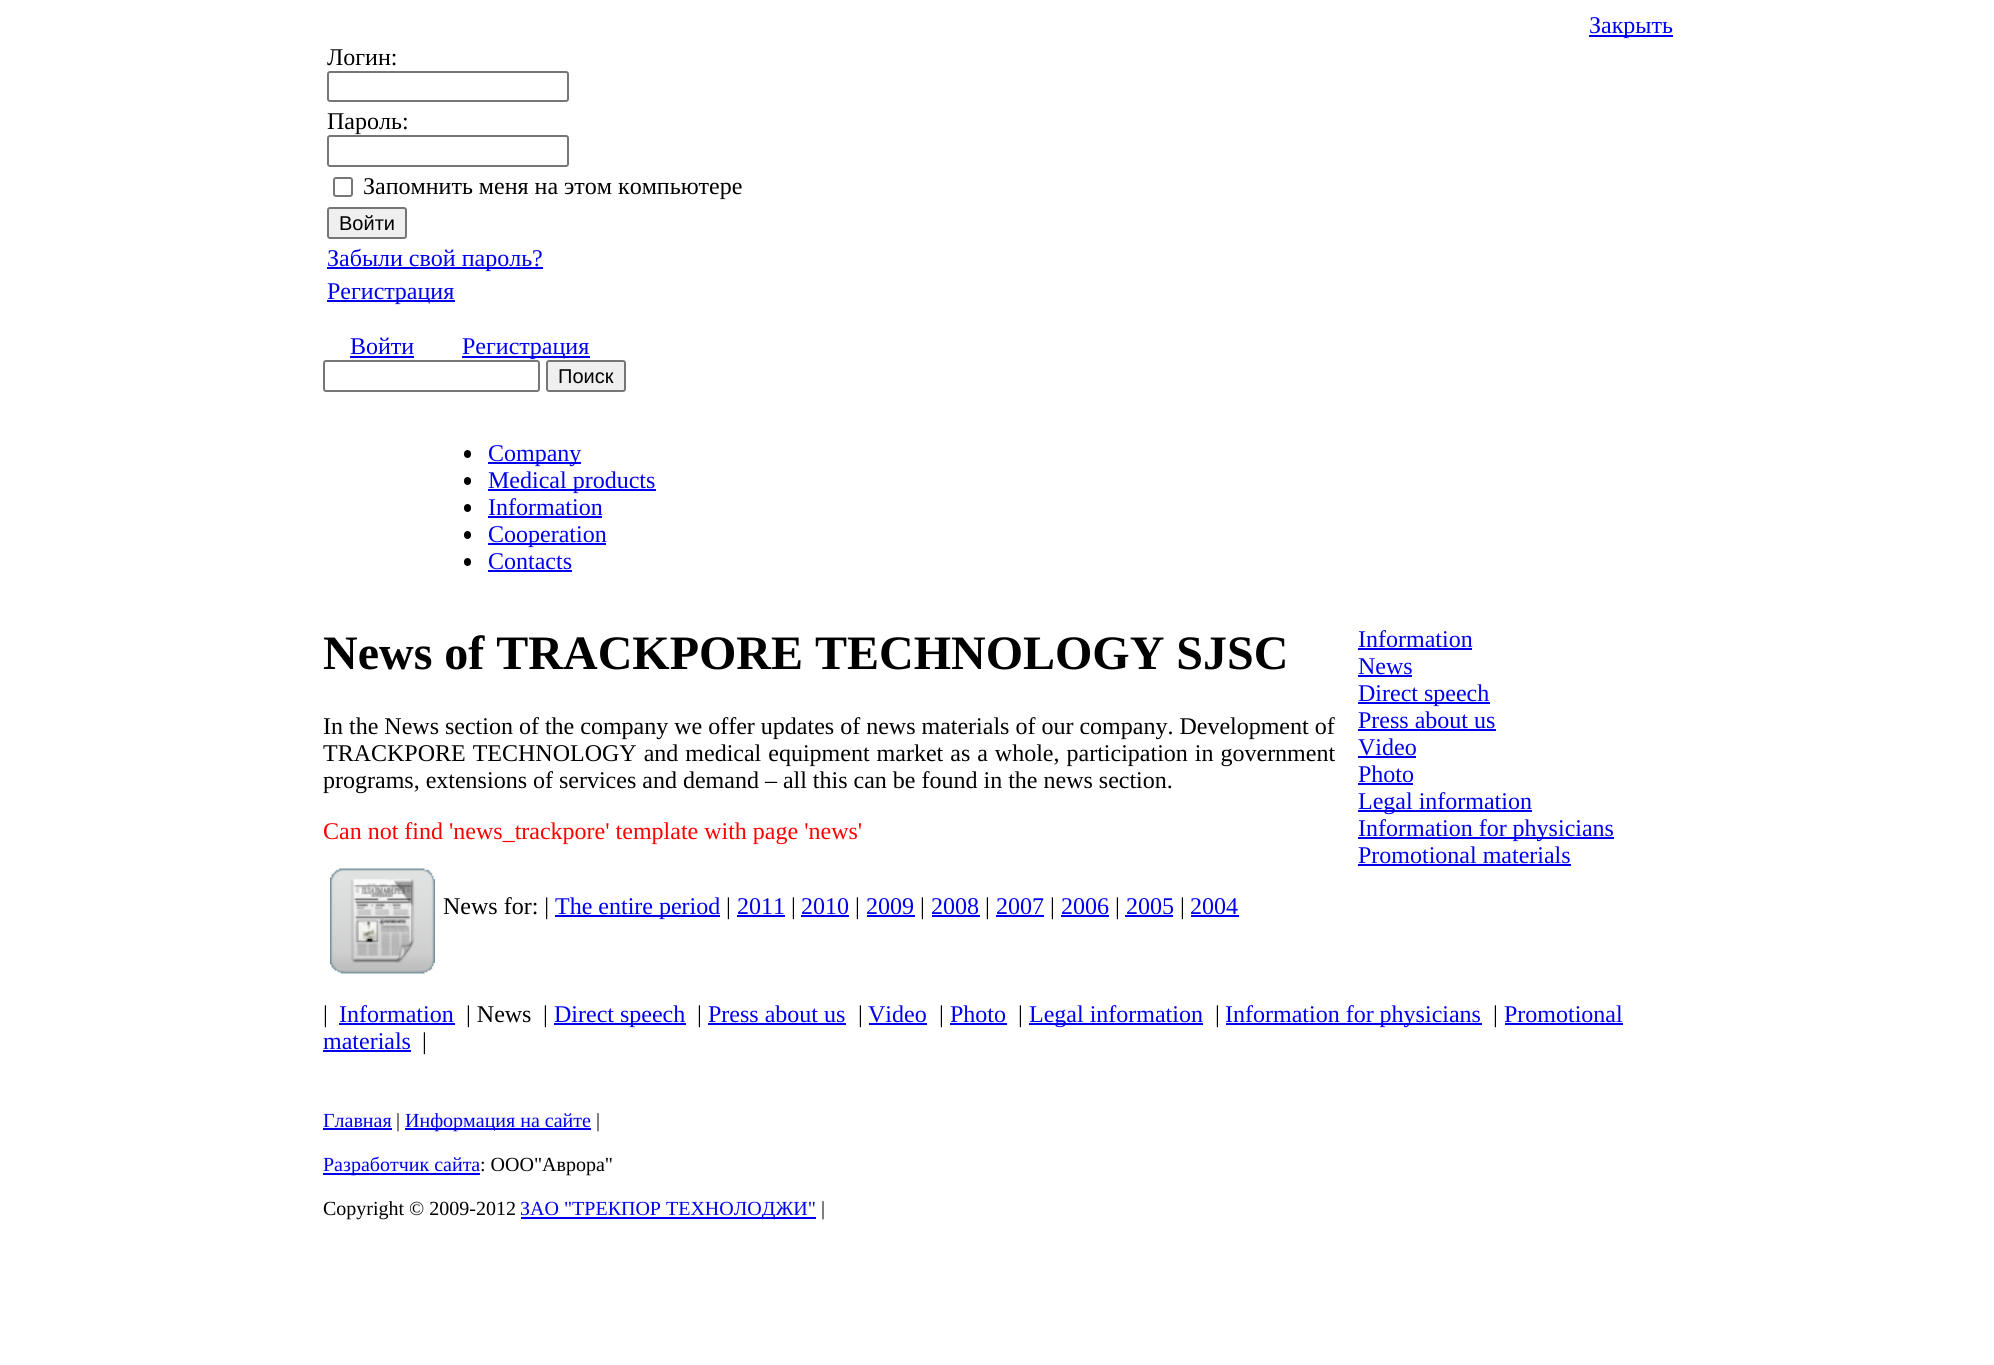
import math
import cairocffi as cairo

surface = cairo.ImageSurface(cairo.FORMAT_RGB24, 1994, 1365)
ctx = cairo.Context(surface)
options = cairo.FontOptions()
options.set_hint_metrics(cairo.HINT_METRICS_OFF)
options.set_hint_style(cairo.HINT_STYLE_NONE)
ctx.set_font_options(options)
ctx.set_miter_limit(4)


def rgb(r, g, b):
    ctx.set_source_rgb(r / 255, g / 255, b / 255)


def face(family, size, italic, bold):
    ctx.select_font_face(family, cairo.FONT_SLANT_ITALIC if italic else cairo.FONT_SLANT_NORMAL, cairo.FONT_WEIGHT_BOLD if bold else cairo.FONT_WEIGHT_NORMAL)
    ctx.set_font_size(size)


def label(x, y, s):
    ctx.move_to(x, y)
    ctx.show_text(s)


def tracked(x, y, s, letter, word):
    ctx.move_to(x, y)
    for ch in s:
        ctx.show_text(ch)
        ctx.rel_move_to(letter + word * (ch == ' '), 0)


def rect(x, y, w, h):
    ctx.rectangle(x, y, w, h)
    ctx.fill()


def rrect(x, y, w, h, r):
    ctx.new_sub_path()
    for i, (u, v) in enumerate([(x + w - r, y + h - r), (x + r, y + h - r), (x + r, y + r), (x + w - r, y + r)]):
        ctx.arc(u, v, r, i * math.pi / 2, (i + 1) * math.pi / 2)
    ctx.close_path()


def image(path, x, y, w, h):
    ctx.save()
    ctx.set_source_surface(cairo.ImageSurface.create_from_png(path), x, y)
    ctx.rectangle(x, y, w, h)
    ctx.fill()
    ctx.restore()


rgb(255, 255, 255)
ctx.paint()
rgb(0, 0, 238)
rect(1589, 35, 84, 2)
face('Liberation Serif', 24, 0, 0)
label(1589, 33, 'Закрыть')
rgb(0, 0, 0)
label(327, 65, 'Логин:')
rrect(328, 72, 240, 29, 2)
rgb(118, 118, 118)
ctx.stroke()
rgb(0, 0, 0)
label(327, 129, 'Пароль:')
rrect(328, 136, 240, 30, 2)
rgb(118, 118, 118)
ctx.stroke()
rrect(334, 178, 18, 18, 2)
ctx.stroke()
rgb(0, 0, 0)
label(363, 194, 'Запомнить меня на этом компьютере')
rgb(239, 239, 239)
rrect(328, 208, 78, 30, 2)
ctx.fill_preserve()
rgb(118, 118, 118)
ctx.stroke()
face('Liberation Sans', 20, 0, 0)
rgb(0, 0, 0)
label(339, 230, 'Войти')
rgb(0, 0, 238)
rect(327, 267, 216, 2)
face('Liberation Serif', 24, 0, 0)
label(327, 266, 'Забыли свой пароль?')
rect(327, 300, 128, 2)
label(327, 299, 'Регистрация')
label(350, 354, 'Войти')
rect(350, 356, 64, 2)
rect(462, 356, 128, 2)
label(462, 354, 'Регистрация')
rrect(324, 361, 215, 30, 2)
rgb(118, 118, 118)
ctx.stroke()
rgb(239, 239, 239)
rrect(547, 361, 78, 30, 2)
ctx.fill_preserve()
rgb(118, 118, 118)
ctx.stroke()
face('Liberation Sans', 20, 0, 0)
rgb(0, 0, 0)
label(558, 383, 'Поиск')
rrect(464, 450, 7, 8, 3.5)
ctx.fill()
rgb(0, 0, 238)
rect(488, 462, 93, 2)
face('Liberation Serif', 24, 0, 0)
label(488, 461, 'Company')
rgb(0, 0, 0)
rrect(464, 477, 7, 8, 3.5)
ctx.fill()
rgb(0, 0, 238)
rect(488, 489, 168, 2)
label(488, 488, 'Medical products')
rgb(0, 0, 0)
rrect(464, 504, 7, 8, 3.5)
ctx.fill()
rgb(0, 0, 238)
label(488, 515, 'Information')
rect(488, 516, 114, 2)
rgb(0, 0, 0)
rrect(464, 531, 7, 8, 3.5)
ctx.fill()
rgb(0, 0, 238)
rect(488, 543, 118, 2)
label(488, 542, 'Cooperation')
rgb(0, 0, 0)
rrect(464, 558, 7, 8, 3.5)
ctx.fill()
rgb(0, 0, 238)
label(488, 569, 'Contacts')
rect(488, 570, 84, 2)
face('Liberation Serif', 48, 0, 1)
rgb(0, 0, 0)
label(323, 669, 'News of TRACKPORE TECHNOLOGY SJSC')
face('Liberation Serif', 24, 0, 0)
label(323, 734, 'In the News section of the company we offer updates of news materials of our company. Development of')
tracked(323, 761, 'TRACKPORE TECHNOLOGY and medical equipment market as a whole, participation in government', 0, 1)
label(323, 788, 'programs, extensions of services and demand – all this can be found in the news section.')
rgb(255, 0, 0)
label(323, 839, 'Can not find \'news_trackpore\' template with page \'news\'')
image('image0.png', 330, 868, 105, 106)
rgb(0, 0, 0)
label(443, 914, 'News for: |')
rgb(0, 0, 238)
rect(555, 915, 165, 2)
label(555, 914, 'The entire period')
rgb(0, 0, 0)
label(726, 914, '|')
rgb(0, 0, 238)
label(737, 914, '2011')
rect(737, 915, 48, 2)
rgb(0, 0, 0)
label(791, 914, '|')
rgb(0, 0, 238)
label(801, 914, '2010')
rect(801, 915, 48, 2)
rgb(0, 0, 0)
label(855, 914, '|')
rgb(0, 0, 238)
label(866, 914, '2009')
rect(867, 915, 48, 2)
rgb(0, 0, 0)
label(920, 914, '|')
rgb(0, 0, 238)
label(931, 914, '2008')
rect(932, 915, 48, 2)
rgb(0, 0, 0)
label(985, 914, '|')
rgb(0, 0, 238)
label(996, 914, '2007')
rect(996, 915, 48, 2)
rgb(0, 0, 0)
label(1050, 914, '|')
rgb(0, 0, 238)
label(1061, 914, '2006')
rect(1061, 915, 48, 2)
rgb(0, 0, 0)
label(1115, 914, '|')
rgb(0, 0, 238)
label(1126, 914, '2005')
rect(1125, 915, 48, 2)
rgb(0, 0, 0)
label(1180, 914, '|')
rgb(0, 0, 238)
label(1190, 914, '2004')
rect(1191, 915, 48, 2)
label(1358, 647, 'Information')
rect(1358, 648, 114, 2)
label(1358, 674, 'News')
rect(1358, 675, 54, 2)
rect(1358, 702, 132, 2)
label(1358, 701, 'Direct speech')
label(1358, 728, 'Press about us')
rect(1358, 729, 138, 2)
label(1358, 755, 'Video')
rect(1358, 756, 58, 2)
label(1358, 782, 'Photo')
rect(1358, 783, 55, 2)
rect(1358, 810, 174, 2)
label(1358, 809, 'Legal information')
rect(1358, 837, 256, 2)
label(1358, 836, 'Information for physicians')
label(1358, 863, 'Promotional materials')
rect(1358, 864, 213, 2)
rgb(0, 0, 0)
label(323, 1022, '|')
rgb(0, 0, 238)
label(339, 1022, 'Information')
rect(339, 1023, 116, 2)
rgb(0, 0, 0)
label(466, 1022, '| News')
label(543, 1022, '|')
rgb(0, 0, 238)
rect(554, 1023, 132, 2)
label(554, 1022, 'Direct speech')
rgb(0, 0, 0)
label(697, 1022, '|')
rgb(0, 0, 238)
label(708, 1022, 'Press about us')
rect(708, 1023, 138, 2)
rgb(0, 0, 0)
label(858, 1022, '|')
rgb(0, 0, 238)
label(868, 1022, 'Video')
rect(869, 1023, 58, 2)
rgb(0, 0, 0)
label(939, 1022, '|')
rgb(0, 0, 238)
label(950, 1022, 'Photo')
rect(950, 1023, 57, 2)
rgb(0, 0, 0)
label(1018, 1022, '|')
rgb(0, 0, 238)
rect(1029, 1023, 174, 2)
label(1029, 1022, 'Legal information')
rgb(0, 0, 0)
label(1215, 1022, '|')
rgb(0, 0, 238)
rect(1226, 1023, 256, 2)
label(1225, 1022, 'Information for physicians')
rgb(0, 0, 0)
label(1493, 1022, '|')
rgb(0, 0, 238)
label(1504, 1022, 'Promotional')
rect(1505, 1023, 118, 2)
label(323, 1049, 'materials')
rect(323, 1050, 88, 2)
rgb(0, 0, 0)
label(422, 1049, '|')
face('Liberation Serif', 20, 0, 0)
rgb(0, 0, 238)
label(323, 1127, 'Главная')
rect(323, 1128, 69, 2)
rgb(0, 0, 0)
label(396, 1127, '|')
rgb(0, 0, 238)
rect(405, 1128, 186, 2)
label(405, 1127, 'Информация на сайте')
rgb(0, 0, 0)
label(596, 1127, '|')
rgb(0, 0, 238)
rect(323, 1173, 157, 2)
label(323, 1171, 'Разработчик сайта')
rgb(0, 0, 0)
label(480, 1171, ': ООО"Аврора"')
label(323, 1215, 'Copyright © 2009-2012')
rgb(0, 0, 238)
rect(521, 1217, 295, 2)
label(520, 1215, 'ЗАО "ТРЕКПОР ТЕХНОЛОДЖИ"')
rgb(0, 0, 0)
label(821, 1215, '|')
surface.write_to_png('render.png')
